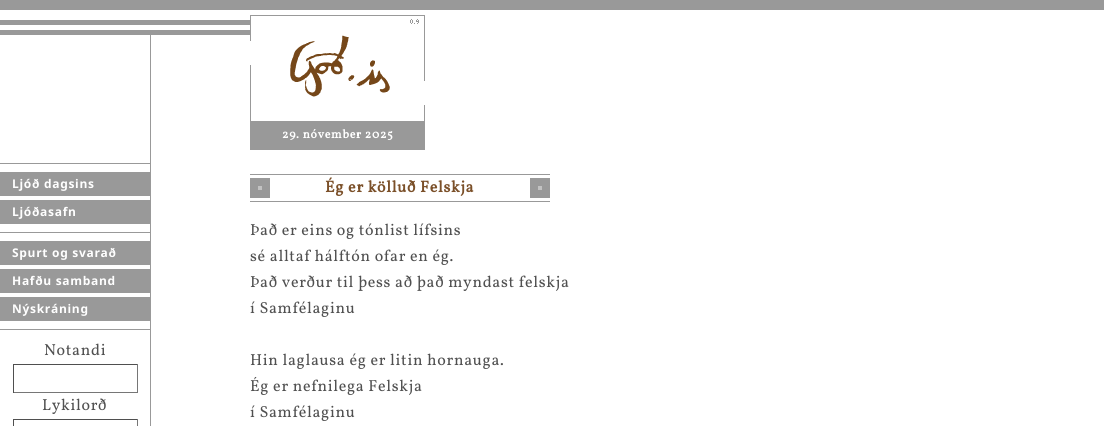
import math
import cairocffi as cairo

surface = cairo.ImageSurface(cairo.FORMAT_RGB24, 1104, 426)
ctx = cairo.Context(surface)
options = cairo.FontOptions()
options.set_hint_metrics(cairo.HINT_METRICS_OFF)
options.set_hint_style(cairo.HINT_STYLE_NONE)
ctx.set_font_options(options)
ctx.set_miter_limit(4)


def rgb(r, g, b):
    ctx.set_source_rgb(r / 255, g / 255, b / 255)


def face(family, size, italic, bold):
    ctx.select_font_face(family, cairo.FONT_SLANT_ITALIC if italic else cairo.FONT_SLANT_NORMAL, cairo.FONT_WEIGHT_BOLD if bold else cairo.FONT_WEIGHT_NORMAL)
    ctx.set_font_size(size)


def tracked(x, y, s, letter, word):
    ctx.move_to(x, y)
    for ch in s:
        ctx.show_text(ch)
        ctx.rel_move_to(letter + word * (ch == ' '), 0)


def rect(x, y, w, h):
    ctx.rectangle(x, y, w, h)
    ctx.fill()


def image(path, x, y, w, h):
    ctx.save()
    ctx.set_source_surface(cairo.ImageSurface.create_from_png(path), x, y)
    ctx.rectangle(x, y, w, h)
    ctx.fill()
    ctx.restore()


rgb(255, 255, 255)
ctx.paint()
rgb(153, 153, 153)
rect(0, 0, 1104, 10)
image('image0.png', 250, 15, 156, 106)
image('image1.png', 406, 15, 19, 106)
rect(250, 121, 175, 29)
face('Vollkorn', 12, 0, 1)
rgb(255, 255, 255)
tracked(282, 138, '29. nóvember 2025', 0.7, 0)
rgb(153, 153, 153)
rect(0, 20, 250, 5)
rect(0, 30, 250, 5)
rect(150, 35, 1, 391)
rect(0, 163, 150, 1)
rect(0, 172, 150, 24)
face('Noto Sans', 12, 0, 1)
rgb(255, 255, 255)
tracked(12, 188, 'Ljóð dagsins', 0.7, 0)
rgb(153, 153, 153)
rect(0, 200, 150, 24)
rgb(255, 255, 255)
tracked(12, 216, 'Ljóðasafn', 0.7, 0)
rgb(153, 153, 153)
rect(0, 232, 150, 1)
rect(0, 241, 150, 24)
rgb(255, 255, 255)
tracked(12, 257, 'Spurt og svarað', 0.7, 0)
rgb(153, 153, 153)
rect(0, 269, 150, 24)
rgb(255, 255, 255)
tracked(12, 285, 'Hafðu samband', 0.7, 0)
rgb(153, 153, 153)
rect(0, 297, 150, 24)
rgb(255, 255, 255)
tracked(12, 313, 'Nýskráning', 0.7, 0)
rgb(153, 153, 153)
rect(0, 329, 150, 1)
face('Vollkorn', 16, 0, 0)
rgb(80, 80, 80)
tracked(44, 355, 'Notandi', 0.7, 0)
rgb(79, 79, 79)
rect(13, 364, 125, 1)
rgb(118, 118, 118)
rect(137, 364, 1, 29)
rect(13, 392, 125, 1)
rgb(79, 79, 79)
rect(13, 364, 1, 29)
rgb(80, 80, 80)
tracked(42, 410, 'Lykilorð', 0.7, 0)
rgb(79, 79, 79)
rect(13, 419, 125, 1)
rgb(118, 118, 118)
rect(137, 419, 1, 7)
rgb(79, 79, 79)
rect(13, 419, 1, 7)
rgb(153, 153, 153)
rect(250, 174, 300, 1)
rect(250, 201, 300, 1)
image('image2.png', 250, 178, 20, 20)
face('Vollkorn', 16, 0, 1)
rgb(123, 80, 41)
tracked(325, 192, 'Ég er kölluð Felskja', 0.7, 0)
image('image2.png', 530, 178, 20, 20)
face('Vollkorn', 16, 0, 0)
rgb(80, 80, 80)
tracked(250, 235, 'Það er eins og tónlist lífsins', 0.7, 0)
tracked(250, 261, 'sé alltaf hálftón ofar en ég.', 0.7, 0)
tracked(250, 287, 'Það verður til þess að það myndast felskja', 0.7, 0)
tracked(250, 313, 'í Samfélaginu', 0.7, 0)
tracked(250, 365, 'Hin laglausa ég er litin hornauga.', 0.7, 0)
tracked(250, 391, 'Ég er nefnilega Felskja', 0.7, 0)
tracked(250, 417, 'í Samfélaginu', 0.7, 0)
surface.write_to_png('render.png')
